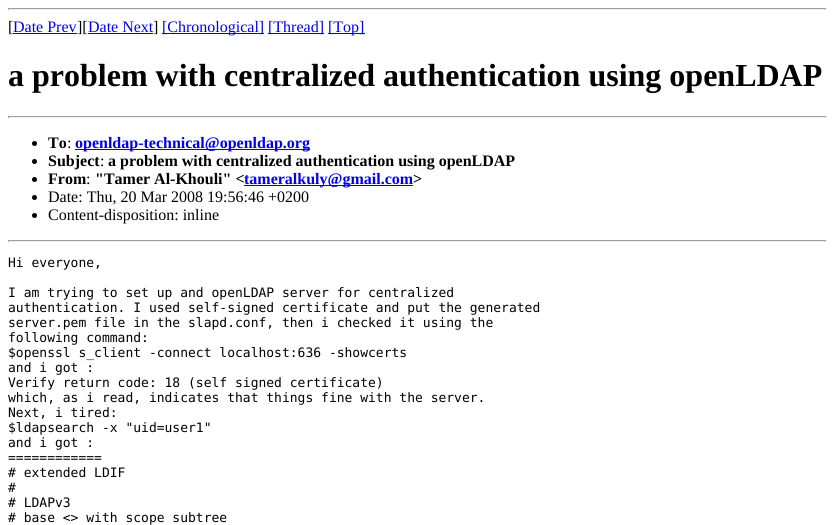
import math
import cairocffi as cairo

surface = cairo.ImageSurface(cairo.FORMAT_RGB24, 835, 525)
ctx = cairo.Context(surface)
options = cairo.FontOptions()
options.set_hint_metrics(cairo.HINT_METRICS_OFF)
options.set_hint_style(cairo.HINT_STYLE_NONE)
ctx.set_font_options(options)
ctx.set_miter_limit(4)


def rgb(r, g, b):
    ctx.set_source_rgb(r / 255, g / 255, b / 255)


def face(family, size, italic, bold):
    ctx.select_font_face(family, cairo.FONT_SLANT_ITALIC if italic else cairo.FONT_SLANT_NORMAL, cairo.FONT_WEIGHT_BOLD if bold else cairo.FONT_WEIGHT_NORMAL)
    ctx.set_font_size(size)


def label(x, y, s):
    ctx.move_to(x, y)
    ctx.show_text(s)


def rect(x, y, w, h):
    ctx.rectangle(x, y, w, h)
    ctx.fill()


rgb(255, 255, 255)
ctx.paint()
rgb(159, 159, 159)
rect(8, 8, 819, 1)
rgb(238, 238, 238)
rect(826, 8, 1, 2)
rect(8, 9, 819, 1)
rgb(159, 159, 159)
rect(8, 8, 1, 2)
face('Liberation Serif', 16, 0, 0)
rgb(0, 0, 0)
label(8, 32, '[')
rgb(0, 0, 238)
label(13, 32, 'Date Prev')
rect(13, 33, 64, 1)
rgb(0, 0, 0)
label(77, 32, '][')
rgb(0, 0, 238)
label(88, 32, 'Date Next')
rect(88, 33, 65, 1)
rgb(0, 0, 0)
label(153, 32, ']')
rgb(0, 0, 238)
rect(162, 33, 102, 1)
label(162, 32, '[Chronological]')
rect(268, 33, 56, 1)
label(268, 32, '[Thread]')
rect(328, 33, 37, 1)
label(328, 32, '[Top]')
face('Liberation Serif', 32, 0, 1)
rgb(0, 0, 0)
label(8, 86, 'a problem with centralized authentication using openLDAP')
rgb(159, 159, 159)
rect(8, 116, 819, 1)
rgb(238, 238, 238)
rect(826, 116, 1, 2)
rect(8, 117, 819, 1)
rgb(159, 159, 159)
rect(8, 116, 1, 2)
rgb(0, 0, 0)
ctx.new_path()
ctx.arc(34.5, 143.5, 2.5, 0, 2 * math.pi)
ctx.fill()
face('Liberation Serif', 16, 0, 1)
label(48, 148, 'To')
face('Liberation Serif', 16, 0, 0)
label(67, 148, ':')
rgb(0, 0, 238)
rect(75, 149, 235, 1)
face('Liberation Serif', 16, 0, 1)
label(75, 148, 'openldap-technical@openldap.org')
rgb(0, 0, 0)
ctx.new_path()
ctx.arc(34.5, 161.5, 2.5, 0, 2 * math.pi)
ctx.fill()
label(48, 166, 'Subject')
face('Liberation Serif', 16, 0, 0)
label(100, 166, ':')
face('Liberation Serif', 16, 0, 1)
label(108, 166, 'a problem with centralized authentication using openLDAP')
ctx.new_path()
ctx.arc(34.5, 179.5, 2.5, 0, 2 * math.pi)
ctx.fill()
label(48, 184, 'From')
face('Liberation Serif', 16, 0, 0)
label(86, 184, ':')
face('Liberation Serif', 16, 0, 1)
label(95, 184, '"Tamer Al-Khouli" <')
rgb(0, 0, 238)
rect(244, 185, 169, 1)
label(244, 184, 'tameralkuly@gmail.com')
rgb(0, 0, 0)
label(413, 184, '>')
ctx.new_path()
ctx.arc(34.5, 197.5, 2.5, 0, 2 * math.pi)
ctx.fill()
face('Liberation Serif', 16, 0, 0)
label(48, 202, 'Date: Thu, 20 Mar 2008 19:56:46 +0200')
ctx.new_path()
ctx.arc(34.5, 215.5, 2.5, 0, 2 * math.pi)
ctx.fill()
label(48, 220, 'Content-disposition: inline')
rgb(159, 159, 159)
rect(8, 240, 819, 1)
rgb(238, 238, 238)
rect(826, 240, 1, 2)
rect(8, 241, 819, 1)
rgb(159, 159, 159)
rect(8, 240, 1, 2)
face('DejaVu Sans Mono', 13, 0, 0)
rgb(0, 0, 0)
label(8, 267, 'Hi everyone,')
label(8, 297, 'I am trying to set up and openLDAP server for centralized')
label(8, 312, 'authentication. I used self-signed certificate and put the generated')
label(8, 327, 'server.pem file in the slapd.conf, then i checked it using the')
label(8, 342, 'following command:')
label(8, 357, '$openssl s_client -connect localhost:636 -showcerts')
label(8, 372, 'and i got :')
label(8, 387, 'Verify return code: 18 (self signed certificate)')
label(8, 402, 'which, as i read, indicates that things fine with the server.')
label(8, 417, 'Next, i tired:')
label(8, 432, '$ldapsearch -x "uid=user1"')
label(8, 447, 'and i got :')
label(8, 462, '============')
label(8, 477, '# extended LDIF')
label(8, 492, '#')
label(8, 507, '# LDAPv3')
label(8, 522, '# base <> with scope subtree')
surface.write_to_png('render.png')
